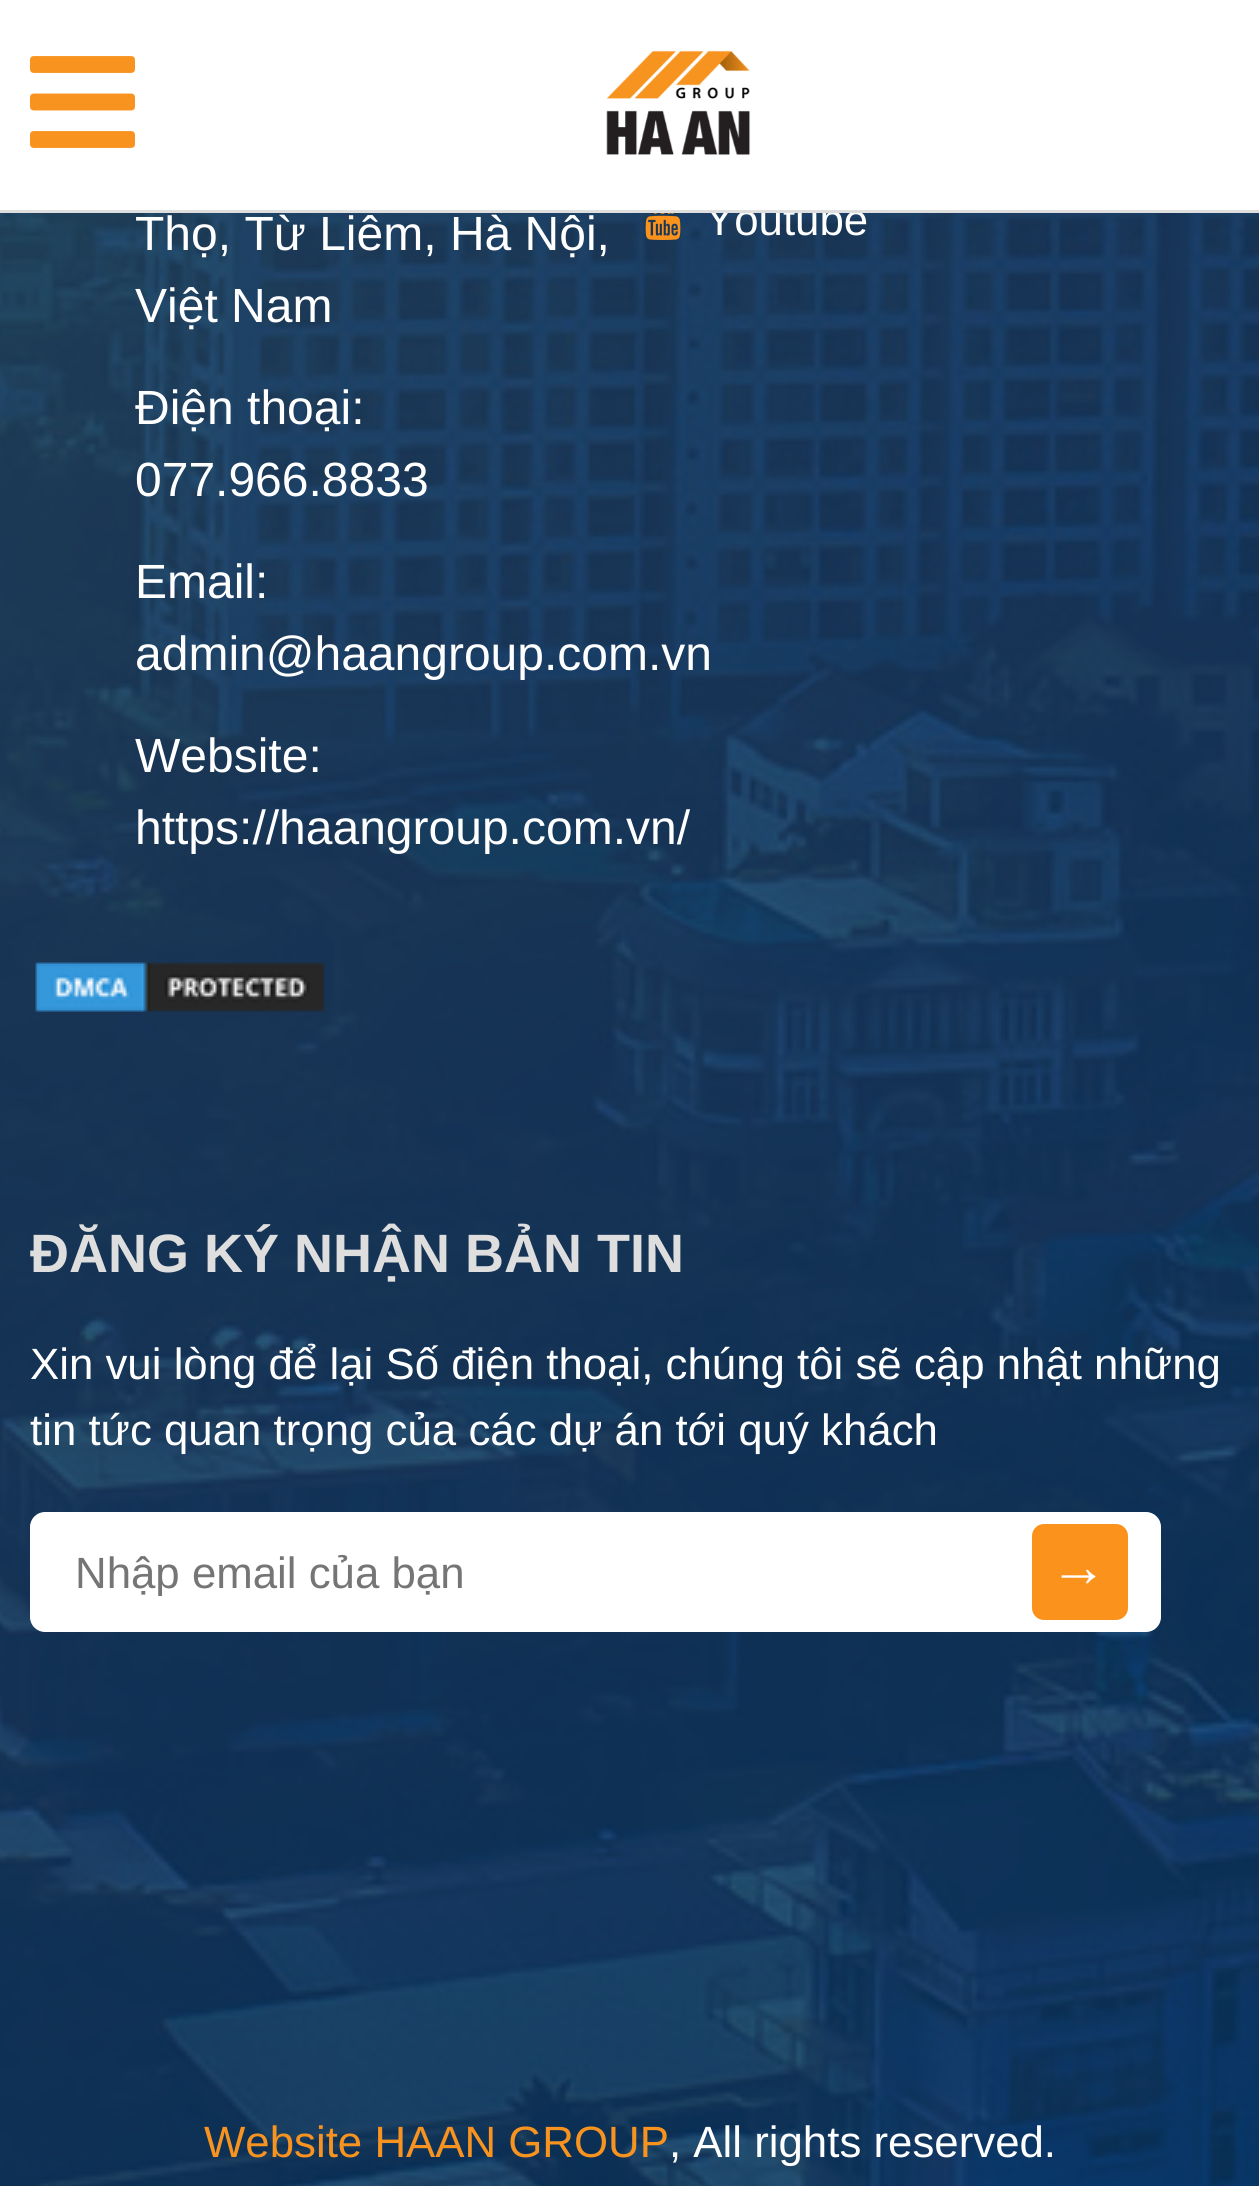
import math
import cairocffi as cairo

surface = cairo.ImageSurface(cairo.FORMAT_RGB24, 1259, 2186)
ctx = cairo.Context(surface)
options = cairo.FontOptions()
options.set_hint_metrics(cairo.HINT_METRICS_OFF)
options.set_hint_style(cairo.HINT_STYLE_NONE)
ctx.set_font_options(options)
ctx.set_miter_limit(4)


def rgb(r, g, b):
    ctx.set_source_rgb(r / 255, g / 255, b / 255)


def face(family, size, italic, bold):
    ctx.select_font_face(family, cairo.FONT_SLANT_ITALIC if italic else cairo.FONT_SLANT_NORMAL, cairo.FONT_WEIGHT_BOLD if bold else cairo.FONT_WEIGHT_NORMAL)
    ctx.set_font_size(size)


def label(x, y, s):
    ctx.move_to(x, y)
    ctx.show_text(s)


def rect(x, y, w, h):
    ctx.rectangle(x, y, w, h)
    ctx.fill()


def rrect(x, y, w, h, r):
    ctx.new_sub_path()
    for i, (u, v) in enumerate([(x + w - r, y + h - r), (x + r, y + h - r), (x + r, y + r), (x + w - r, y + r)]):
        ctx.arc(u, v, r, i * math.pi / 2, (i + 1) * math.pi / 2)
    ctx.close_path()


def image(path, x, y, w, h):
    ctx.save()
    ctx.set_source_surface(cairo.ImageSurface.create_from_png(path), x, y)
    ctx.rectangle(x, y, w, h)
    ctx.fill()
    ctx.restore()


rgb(255, 255, 255)
ctx.paint()
image('image2.png', 0, 213, 1259, 1973)
face('Liberation Sans', 43.8, 0, 0)
rgb(255, 255, 255)
label(705, 235, 'Youtube')
rgb(222, 222, 222)
rect(0, 210, 1259, 3)
image('image0.png', 30, 56, 105, 92)
image('image1.png', 606, 50, 145, 105)
face('Liberation Sans', 48, 0, 0)
rgb(255, 255, 255)
label(135, 250, 'Thọ, Từ Liêm, Hà Nội,')
label(135, 322, 'Việt Nam')
label(135, 424, 'Điện thoại:')
label(135, 496, '077.966.8833')
label(135, 598, 'Email:')
label(135, 670, 'admin@haangroup.com.vn')
label(135, 772, 'Website:')
label(135, 844, 'https://haangroup.com.vn/')
image('image3.png', 35, 962, 290, 50)
image('image4.png', 645, 213, 36, 27)
face('Liberation Sans', 54, 0, 1)
rgb(222, 222, 222)
label(30, 1272, 'ĐĂNG KÝ NHẬN BẢN TIN')
face('Liberation Sans', 43.8, 0, 0)
rgb(255, 255, 255)
label(30, 1379, 'Xin vui lòng để lại Số điện thoại, chúng tôi sẽ cập nhật những')
label(30, 1445, 'tin tức quan trọng của các dự án tới quý khách')
rrect(30, 1512, 1131, 120, 15)
ctx.fill()
ctx.save()
ctx.rectangle(75, 1548, 1086, 48)
ctx.clip()
rgb(117, 117, 117)
label(75, 1588, 'Nhập email của bạn')
ctx.restore()
rgb(251, 146, 28)
rrect(1030.5, 1522.5, 99, 99, 13.5)
ctx.fill_preserve()
rgb(255, 255, 255)
ctx.set_line_width(3)
ctx.stroke()
face('Liberation Sans', 57, 0, 0)
label(1050, 1586, '→')
face('Liberation Sans', 43.8, 0, 0)
rgb(248, 147, 32)
label(204, 2157, 'Website HAAN GROUP')
rgb(255, 255, 255)
label(669, 2157, ', All rights reserved.')
surface.write_to_png('render.png')
